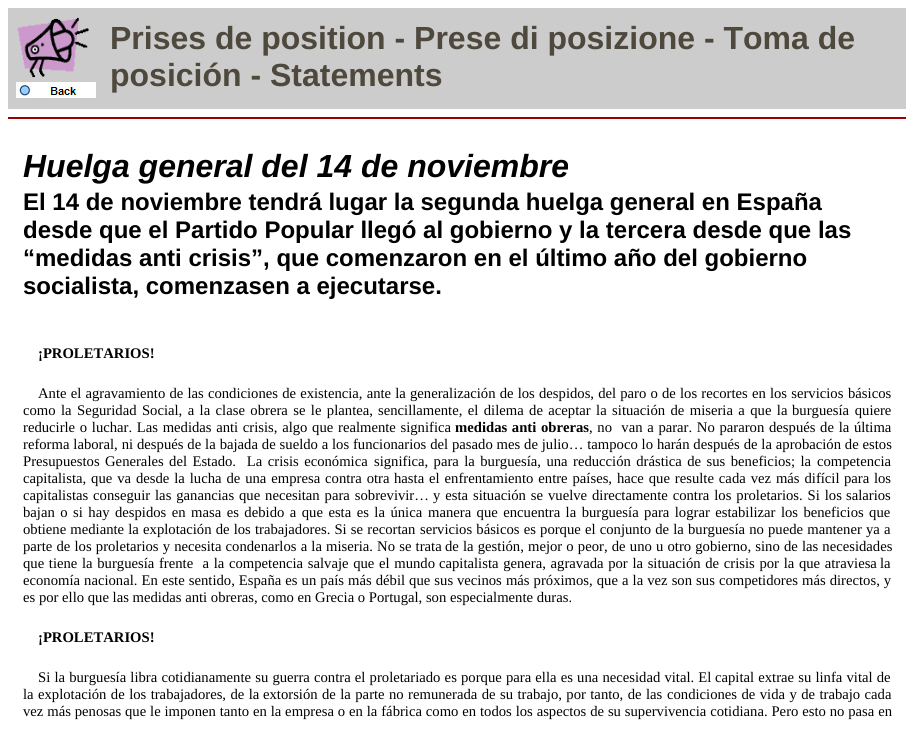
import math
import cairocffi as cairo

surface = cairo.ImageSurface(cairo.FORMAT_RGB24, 914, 729)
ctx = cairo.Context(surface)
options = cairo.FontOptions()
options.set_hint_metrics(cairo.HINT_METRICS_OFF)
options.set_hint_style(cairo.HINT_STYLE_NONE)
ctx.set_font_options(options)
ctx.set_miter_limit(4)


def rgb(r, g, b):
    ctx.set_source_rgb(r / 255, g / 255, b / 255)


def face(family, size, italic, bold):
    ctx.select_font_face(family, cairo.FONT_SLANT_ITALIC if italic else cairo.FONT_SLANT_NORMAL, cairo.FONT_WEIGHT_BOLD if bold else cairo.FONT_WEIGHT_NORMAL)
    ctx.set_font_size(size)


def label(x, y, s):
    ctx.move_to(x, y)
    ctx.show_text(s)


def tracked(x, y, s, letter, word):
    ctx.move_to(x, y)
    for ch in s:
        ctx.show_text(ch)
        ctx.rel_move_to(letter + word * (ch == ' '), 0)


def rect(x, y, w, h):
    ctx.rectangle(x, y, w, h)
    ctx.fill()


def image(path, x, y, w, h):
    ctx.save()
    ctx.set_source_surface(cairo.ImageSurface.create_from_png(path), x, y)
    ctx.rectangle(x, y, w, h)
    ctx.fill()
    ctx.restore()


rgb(255, 255, 255)
ctx.paint()
rgb(204, 204, 204)
rect(8, 8, 898, 101)
image('image0.png', 17, 17, 72, 61)
image('image1.png', 16, 82, 80, 16)
face('Liberation Sans', 32, 0, 1)
rgb(78, 72, 61)
label(110, 49, 'Prises de position - Prese di posizione - Toma de')
label(110, 86, 'posición - Statements')
rgb(153, 0, 0)
rect(8, 117, 898, 2)
face('Liberation Sans', 32, 1, 1)
rgb(0, 0, 0)
label(23, 177, 'Huelga general del 14 de noviembre')
face('Liberation Sans', 24, 0, 1)
label(23, 210, 'El 14 de noviembre tendrá lugar la segunda huelga general en España')
label(23, 238, 'desde que el Partido Popular llegó al gobierno y la tercera desde que las')
label(23, 266, '“medidas anti crisis”, que comenzaron en el último año del gobierno')
label(23, 294, 'socialista, comenzasen a ejecutarse.')
face('Liberation Serif', 14.67, 0, 1)
label(38, 358, '¡PROLETARIOS!')
face('Liberation Serif', 14.67, 0, 0)
tracked(38, 398, 'Ante el agravamiento de las condiciones de existencia, ante la', 0, 0.5)
tracked(410, 398, 'generalización de los despidos, del paro o de los recortes en los servicios', 0, 0.5)
label(848, 398, 'básicos')
tracked(23, 415, 'como la Seguridad Social, a la clase obrera se le plantea,', 0, 1.75)
tracked(378, 415, 'sencillamente, el dilema de aceptar la situación de miseria a que la', 0, 1.75)
tracked(792, 415, 'burguesía quiere', 0, 2)
tracked(23, 432, 'reducirle o luchar. Las medidas anti crisis, algo que', 0, 1)
tracked(338, 432, 'realmente significa', 0, 1)
face('Liberation Serif', 14.67, 0, 1)
tracked(455, 432, 'medidas anti obreras', 0, 1)
face('Liberation Serif', 14.67, 0, 0)
tracked(589, 432, ', no  van a parar. No pararon', 0, 1)
tracked(769, 432, 'después de la última', 0, 1)
tracked(23, 449, 'reforma laboral, ni después de la bajada de sueldo a', 0, 0.25)
tracked(332, 449, 'los funcionarios del pasado mes de julio… tampoco lo harán después de la aprobación de estos', 0, 0.2)
tracked(23, 466, 'Presupuestos Generales del Estado.  La crisis económica', 0, 1.75)
tracked(374, 466, 'significa, para la burguesía, una reducción drástica de sus beneficios; la', 0, 1.75)
label(817, 466, 'competencia')
tracked(23, 483, 'capitalista, que va desde la lucha de una empresa contra otra', 0, 1.25)
tracked(394, 483, 'hasta el enfrentamiento entre países, hace que resulte cada vez más difícil', 0, 1.25)
tracked(844, 483, 'para los', 0, 1)
tracked(23, 500, 'capitalistas conseguir las ganancias que necesitan para sobrevivir…', 0, 1.25)
tracked(433, 500, 'y esta situación se vuelve directamente contra los proletarios. Si los', 0, 1.25)
label(846, 500, 'salarios')
tracked(23, 517, 'bajan o si hay despidos en masa es debido a que esta es la única', 0, 1.8)
tracked(428, 517, 'manera que encuentra la burguesía para lograr estabilizar los beneficios que', 0, 1.75)
tracked(23, 534, 'obtiene mediante la explotación de los trabajadores. Si se recortan', 0, 0.5)
tracked(420, 534, 'servicios básicos es porque el conjunto de la burguesía no puede mantener ya', 0, 0.5)
label(884, 534, 'a')
tracked(23, 551, 'parte de los proletarios y necesita condenarlos a la miseria. No se trata', 0, 0.5)
tracked(445, 551, 'de la gestión, mejor o peor, de uno u otro gobierno, sino de las necesidades', 0, 0.5)
tracked(23, 568, 'que tiene la burguesía frente  a la competencia salvaje que el mundo', 0, 1)
tracked(439, 568, 'capitalista genera, agravada por la situación de crisis por la que atraviesa', 0, 1)
label(880, 568, 'la')
tracked(23, 585, 'economía nacional. En este sentido, España es un país más débil que sus', 0, 0.4)
tracked(457, 585, 'vecinos más próximos, que a la vez son sus competidores más directos, y', 0, 0.4)
label(23, 602, 'es por ello que las medidas anti obreras, como en Grecia o Portugal, son especialmente duras.')
face('Liberation Serif', 14.67, 0, 1)
label(38, 642, '¡PROLETARIOS!')
face('Liberation Serif', 14.67, 0, 0)
tracked(38, 682, 'Si la burguesía libra cotidianamente su guerra', 0, 0.5)
tracked(314, 682, 'contra el proletariado es porque para ella es una necesidad vital. El', 0, 0.5)
tracked(715, 682, 'capital extrae su linfa vital de', 0, 0.5)
tracked(23, 699, 'la explotación de los trabajadores, de la', 0, 0.75)
tracked(263, 699, 'extorsión de la parte no remunerada de su trabajo, por tanto, de las', 0, 0.75)
tracked(667, 699, 'condiciones de vida y de trabajo cada', 0, 0.75)
tracked(23, 716, 'vez más penosas que le imponen tanto en la empresa o en la fábrica como en todos los aspectos de su supervivencia cotidiana. Pero esto no pasa en', 0, 0.2)
surface.write_to_png('render.png')
